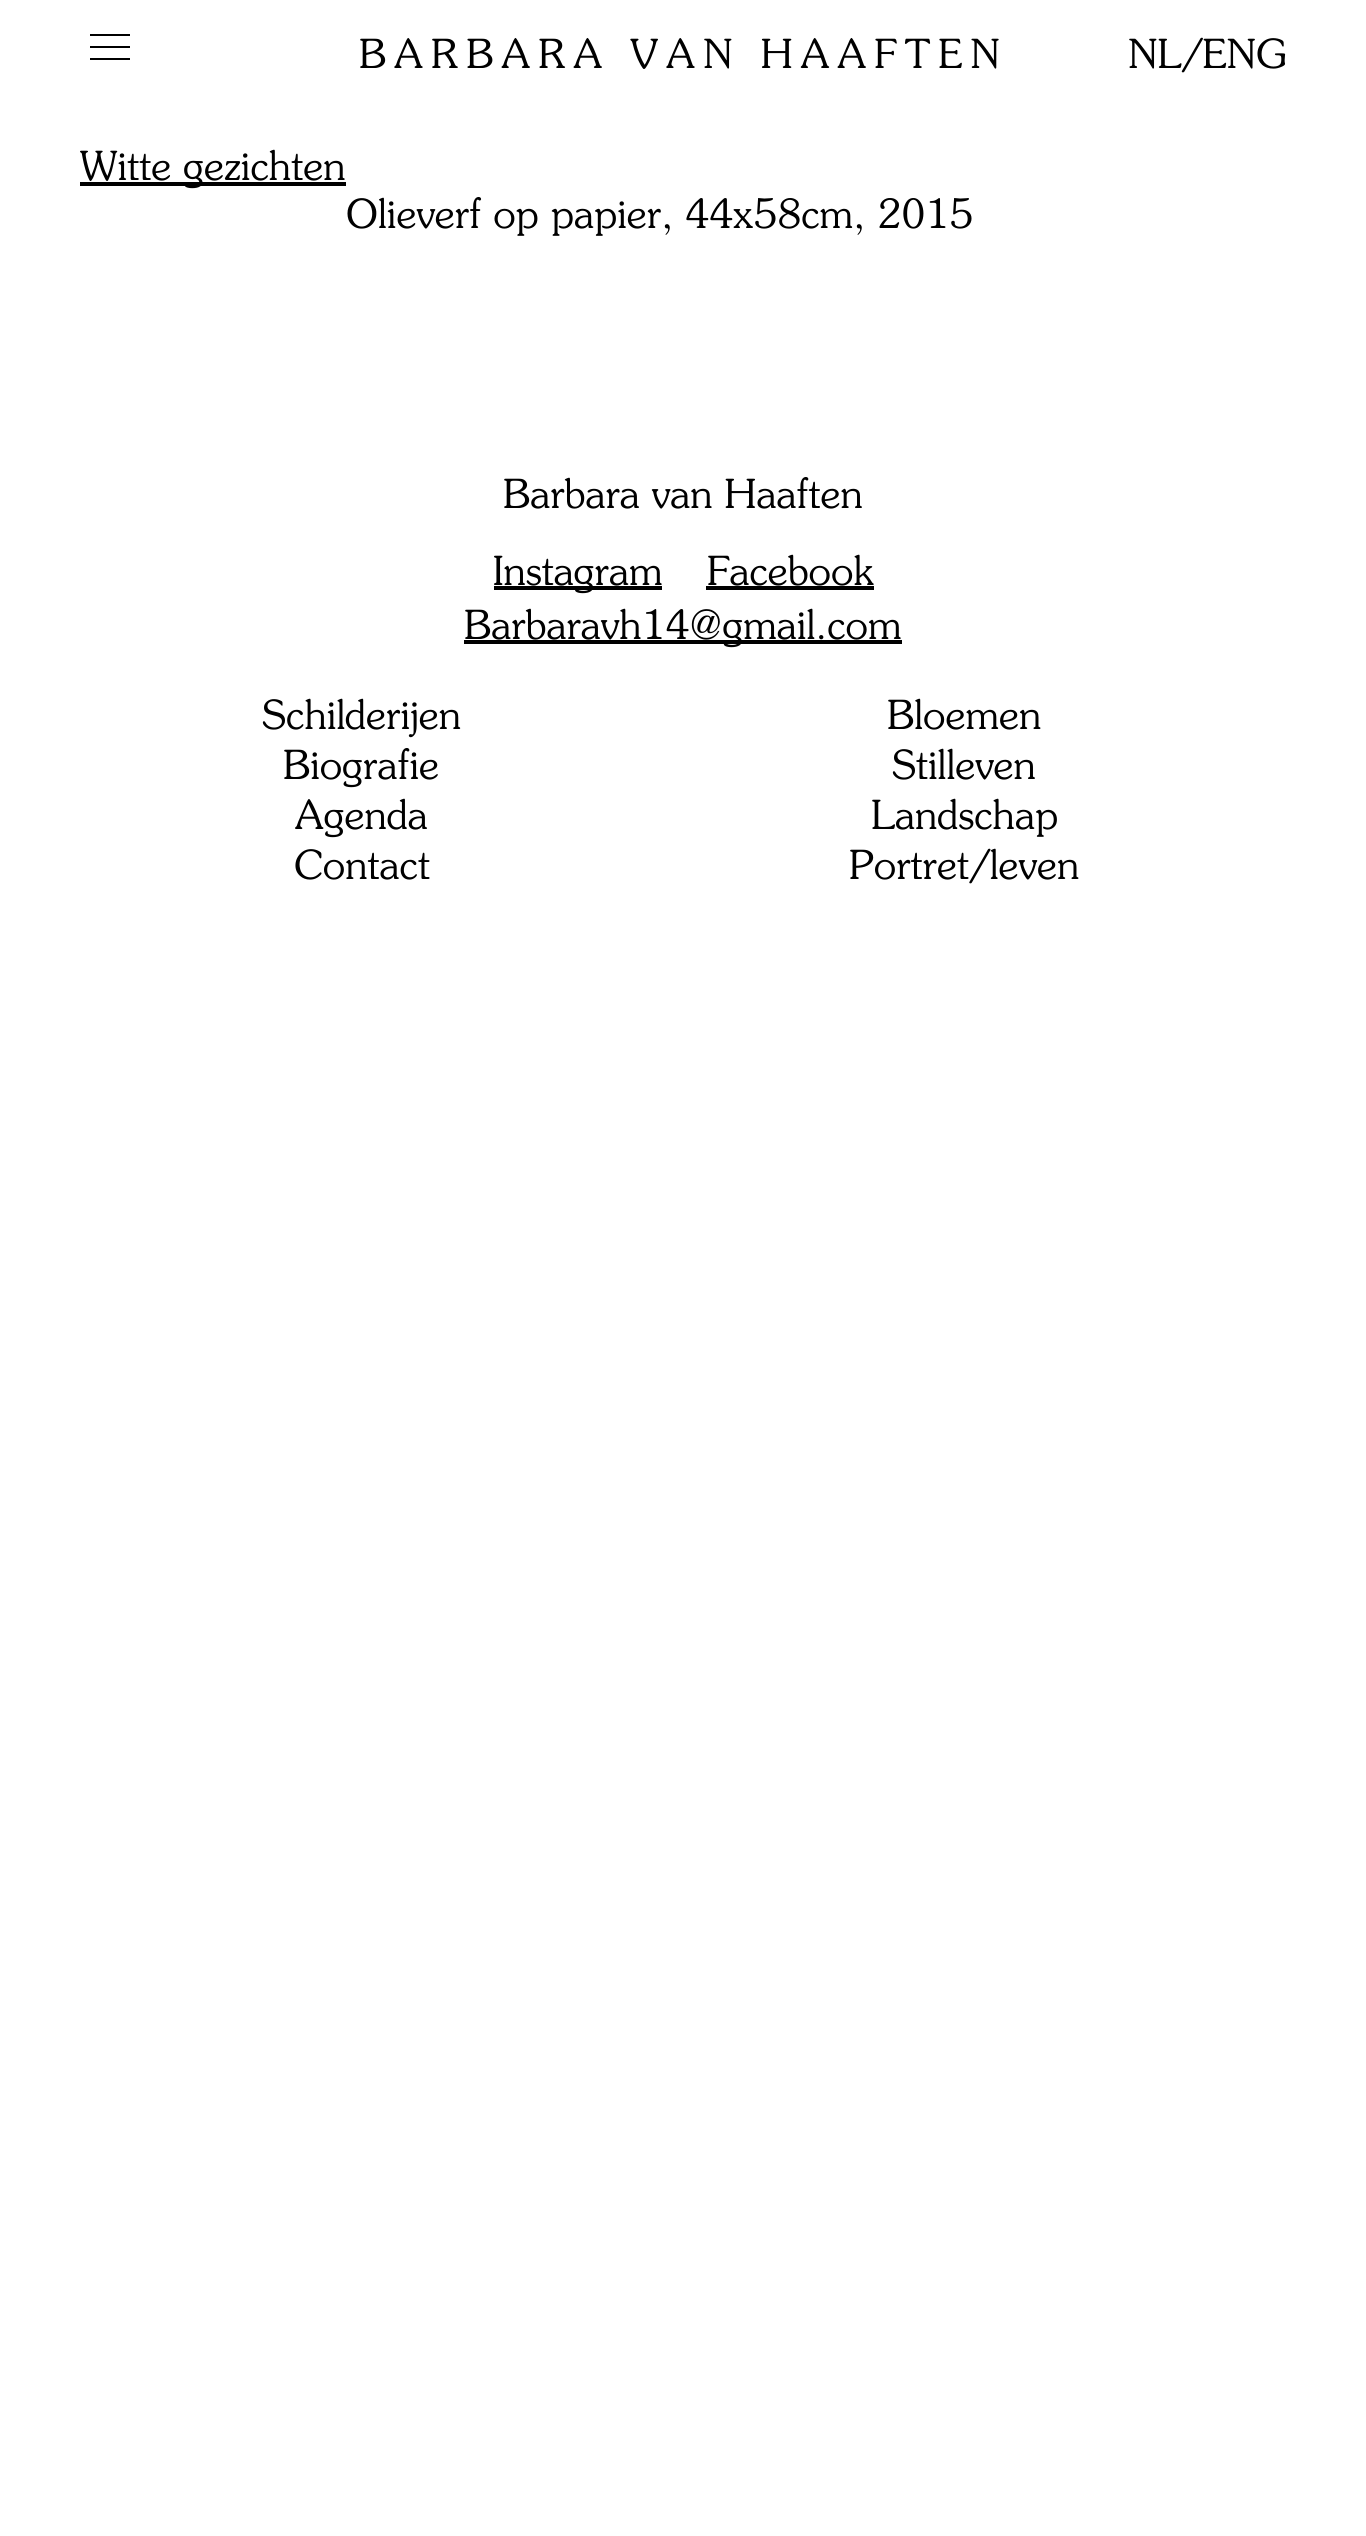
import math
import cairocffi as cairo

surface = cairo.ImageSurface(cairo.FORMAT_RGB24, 1366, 2536)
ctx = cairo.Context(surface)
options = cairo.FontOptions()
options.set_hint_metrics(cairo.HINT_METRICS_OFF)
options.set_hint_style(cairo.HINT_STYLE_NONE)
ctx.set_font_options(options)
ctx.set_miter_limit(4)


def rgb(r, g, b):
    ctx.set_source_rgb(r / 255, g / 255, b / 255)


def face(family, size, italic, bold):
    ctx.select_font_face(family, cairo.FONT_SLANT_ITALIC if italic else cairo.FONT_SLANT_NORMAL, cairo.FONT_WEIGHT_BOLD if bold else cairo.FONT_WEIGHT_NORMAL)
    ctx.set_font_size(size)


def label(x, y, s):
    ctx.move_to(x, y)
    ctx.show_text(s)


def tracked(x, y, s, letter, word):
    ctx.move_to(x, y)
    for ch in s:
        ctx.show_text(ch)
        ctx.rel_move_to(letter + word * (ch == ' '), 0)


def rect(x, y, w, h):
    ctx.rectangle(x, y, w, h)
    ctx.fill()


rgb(255, 255, 255)
ctx.paint()
rgb(0, 0, 0)
rect(90, 34, 40, 2)
rect(90, 46, 40, 2)
rect(90, 58, 40, 2)
face('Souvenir', 40, 0, 0)
tracked(359, 68, 'BARBARA VAN HAAFTEN', 8, 0)
label(1128, 68, 'NL/ENG')
rect(80, 182, 266, 4)
label(80, 180, 'Witte gezichten')
label(346, 228, 'Olieverf op papier, 44x58cm, 2015')
label(503, 508, 'Barbara van Haaften')
rect(494, 586, 168, 4)
label(493, 585, 'Instagram')
label(707, 585, 'Facebook')
rect(706, 586, 168, 4)
rect(464, 640, 438, 4)
label(464, 639, 'Barbaravh14@gmail.com')
label(262, 729, 'Schilderijen')
label(283, 779, 'Biografie')
label(295, 829, 'Agenda')
label(294, 879, 'Contact')
label(887, 729, 'Bloemen')
label(892, 779, 'Stilleven')
label(871, 829, 'Landschap')
label(849, 879, 'Portret/leven')
surface.write_to_png('render.png')
